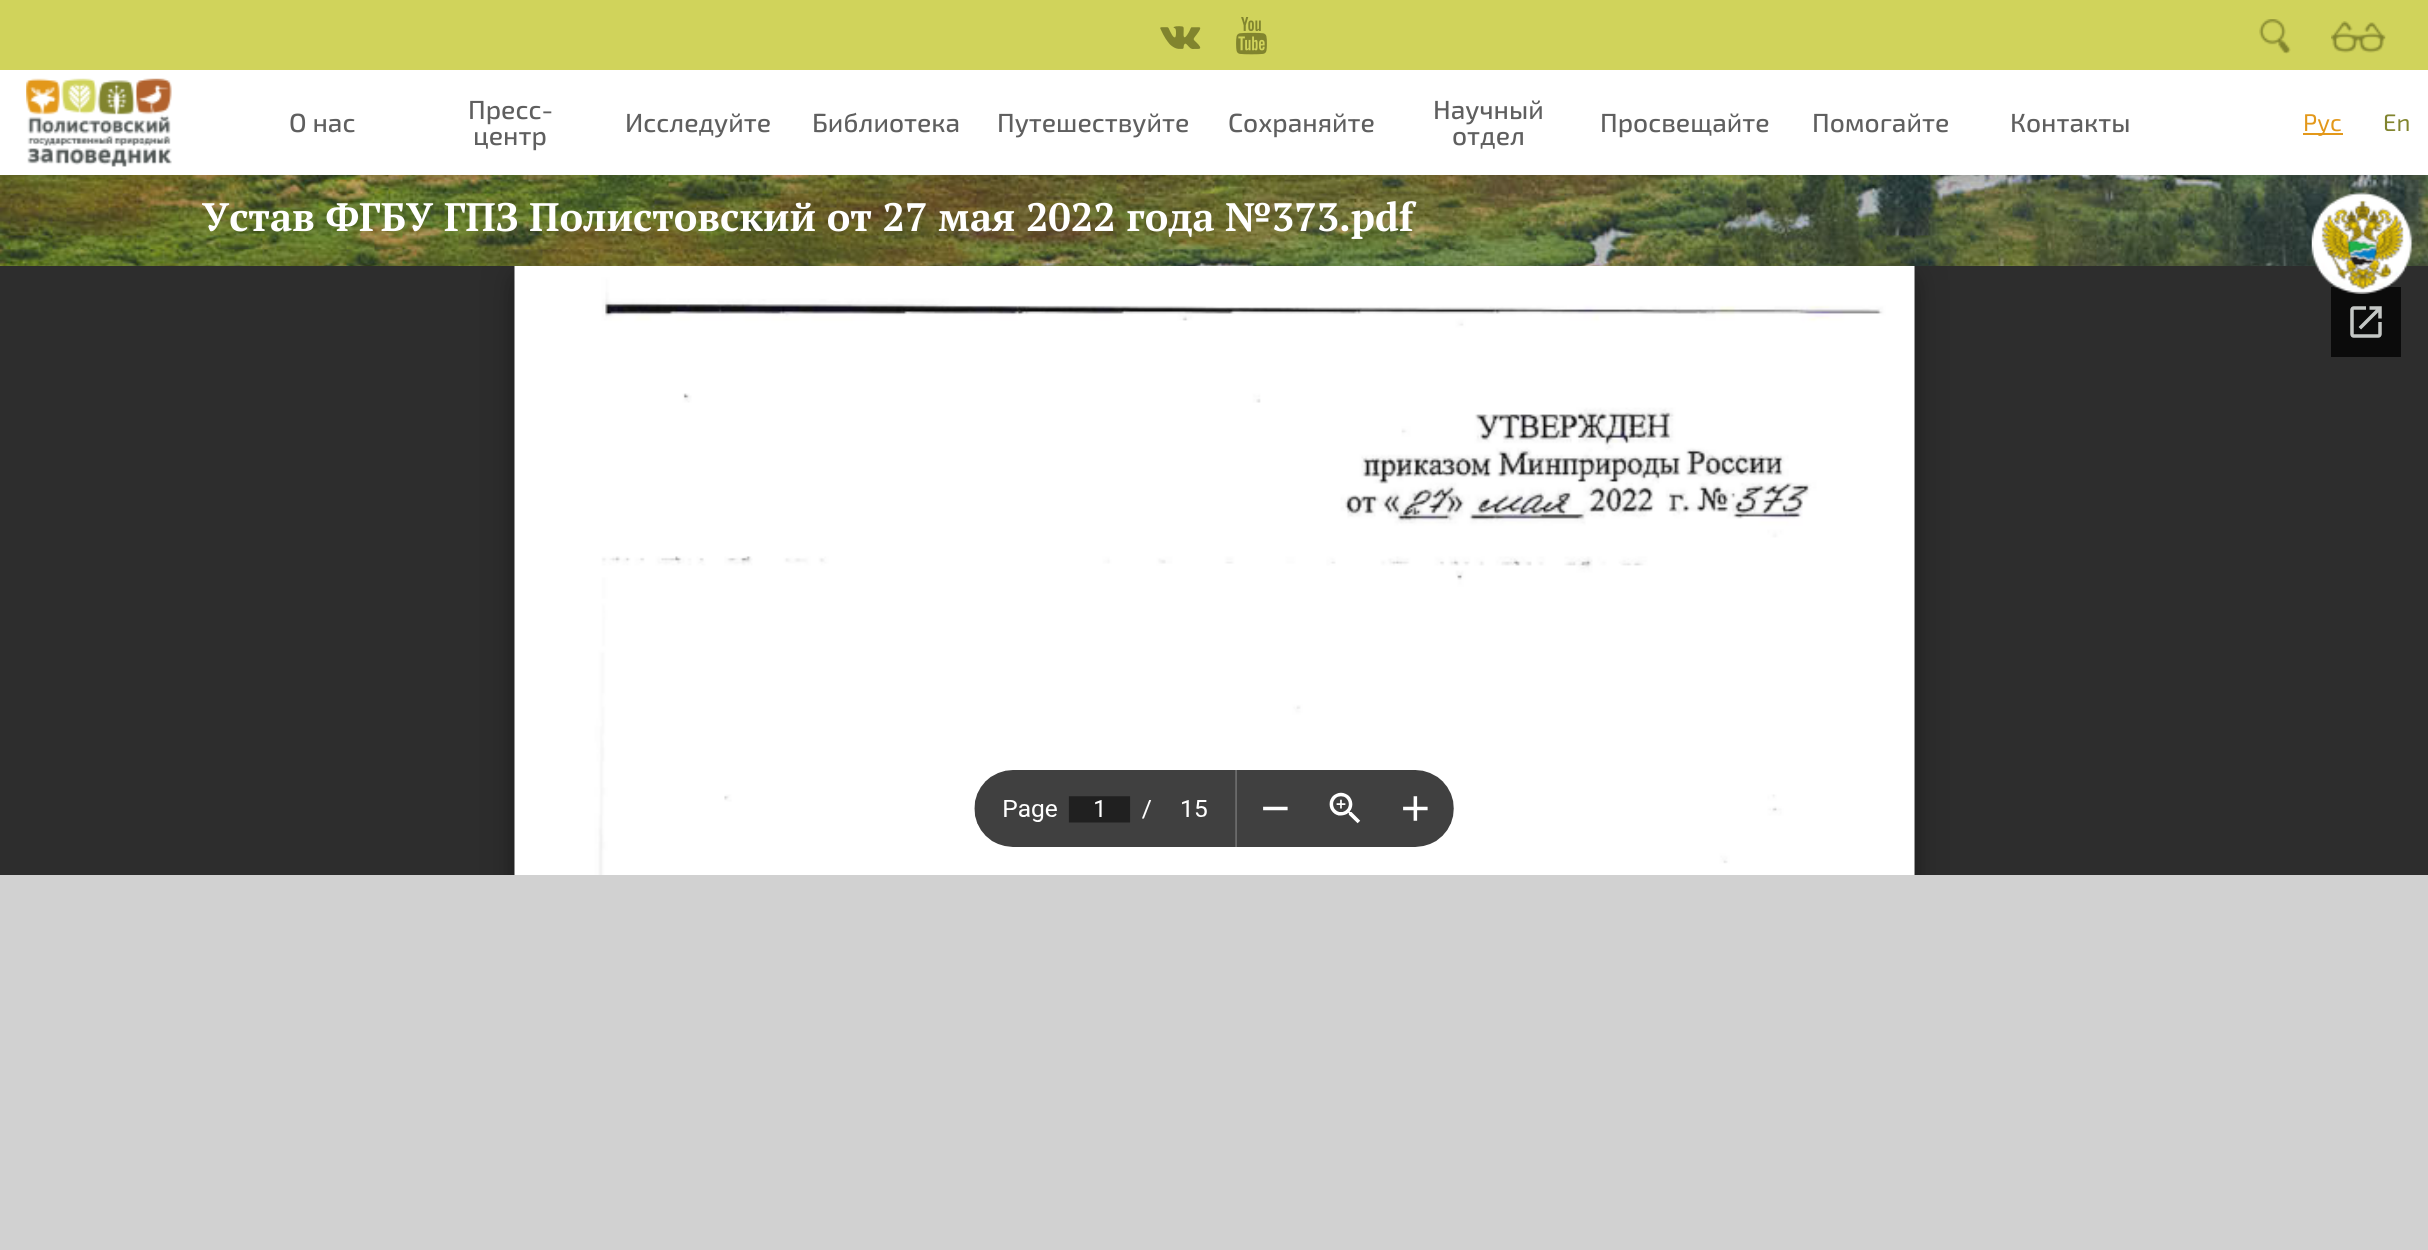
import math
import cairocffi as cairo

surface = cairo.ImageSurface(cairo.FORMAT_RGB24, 2428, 1250)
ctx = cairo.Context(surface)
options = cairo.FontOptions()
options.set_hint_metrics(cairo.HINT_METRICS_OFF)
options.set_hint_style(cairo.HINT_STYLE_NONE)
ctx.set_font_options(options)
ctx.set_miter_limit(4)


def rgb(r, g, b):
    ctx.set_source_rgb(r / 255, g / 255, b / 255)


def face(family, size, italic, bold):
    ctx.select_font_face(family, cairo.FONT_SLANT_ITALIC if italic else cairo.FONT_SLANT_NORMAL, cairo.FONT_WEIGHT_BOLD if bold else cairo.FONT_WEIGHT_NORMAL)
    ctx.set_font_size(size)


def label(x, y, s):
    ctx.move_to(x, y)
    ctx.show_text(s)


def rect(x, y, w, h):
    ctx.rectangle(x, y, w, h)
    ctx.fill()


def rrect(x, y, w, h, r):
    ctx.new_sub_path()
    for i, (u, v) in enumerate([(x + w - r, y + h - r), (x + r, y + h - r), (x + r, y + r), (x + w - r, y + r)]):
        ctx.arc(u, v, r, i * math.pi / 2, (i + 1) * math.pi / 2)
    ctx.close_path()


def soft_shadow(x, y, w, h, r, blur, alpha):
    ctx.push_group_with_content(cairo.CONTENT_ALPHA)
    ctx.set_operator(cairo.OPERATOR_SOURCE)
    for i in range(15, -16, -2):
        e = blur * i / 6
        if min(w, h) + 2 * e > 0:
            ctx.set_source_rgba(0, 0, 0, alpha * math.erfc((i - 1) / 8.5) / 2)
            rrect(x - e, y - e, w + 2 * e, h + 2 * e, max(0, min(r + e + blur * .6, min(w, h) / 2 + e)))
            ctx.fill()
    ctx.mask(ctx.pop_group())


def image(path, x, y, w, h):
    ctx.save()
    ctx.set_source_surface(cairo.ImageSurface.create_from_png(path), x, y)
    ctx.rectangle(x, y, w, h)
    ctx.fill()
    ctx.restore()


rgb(209, 209, 209)
ctx.paint()
image('image5.png', 0, 175, 2428, 91)
rgb(0, 0, 0)
soft_shadow(0, 4, 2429, 175, 0, 3.5, 0.07)
rgb(208, 211, 91)
rect(0, 0, 2428, 70)
image('image0.png', 1160, 26, 41, 23)
image('image1.png', 1236, 17, 31, 38)
image('image2.png', 2259, 19, 32, 35)
image('image3.png', 2331, 21, 55, 32)
rgb(255, 255, 255)
rect(0, 70, 2428, 105)
image('image4.png', 26, 78, 146, 89)
face('Exo 2 Medium', 26.25, 0, 0)
rgb(95, 95, 95)
label(289, 132, 'О нас')
label(468, 119, 'Пресс-')
label(473, 145, 'центр')
label(625, 132, 'Исследуйте')
label(812, 132, 'Библиотека')
label(997, 132, 'Путешествуйте')
label(1228, 132, 'Сохраняйте')
label(1433, 119, 'Научный')
label(1452, 145, 'отдел')
label(1600, 132, 'Просвещайте')
label(1812, 132, 'Помогайте')
label(2010, 132, 'Контакты')
rgb(227, 152, 26)
rect(2303, 133, 40, 2)
face('Exo 2', 24, 0, 0)
label(2303, 131, 'Рус')
rgb(129, 132, 46)
label(2383, 131, 'En')
face('PT Serif', 39.7, 0, 1)
rgb(255, 255, 255)
label(202, 231, 'Устав ФГБУ ГПЗ Полистовский от 27 мая 2022 года №373.pdf')
image('image7.png', 0, 266, 2428, 609)
image('image6.png', 2311, 192, 101, 102)
surface.write_to_png('render.png')
